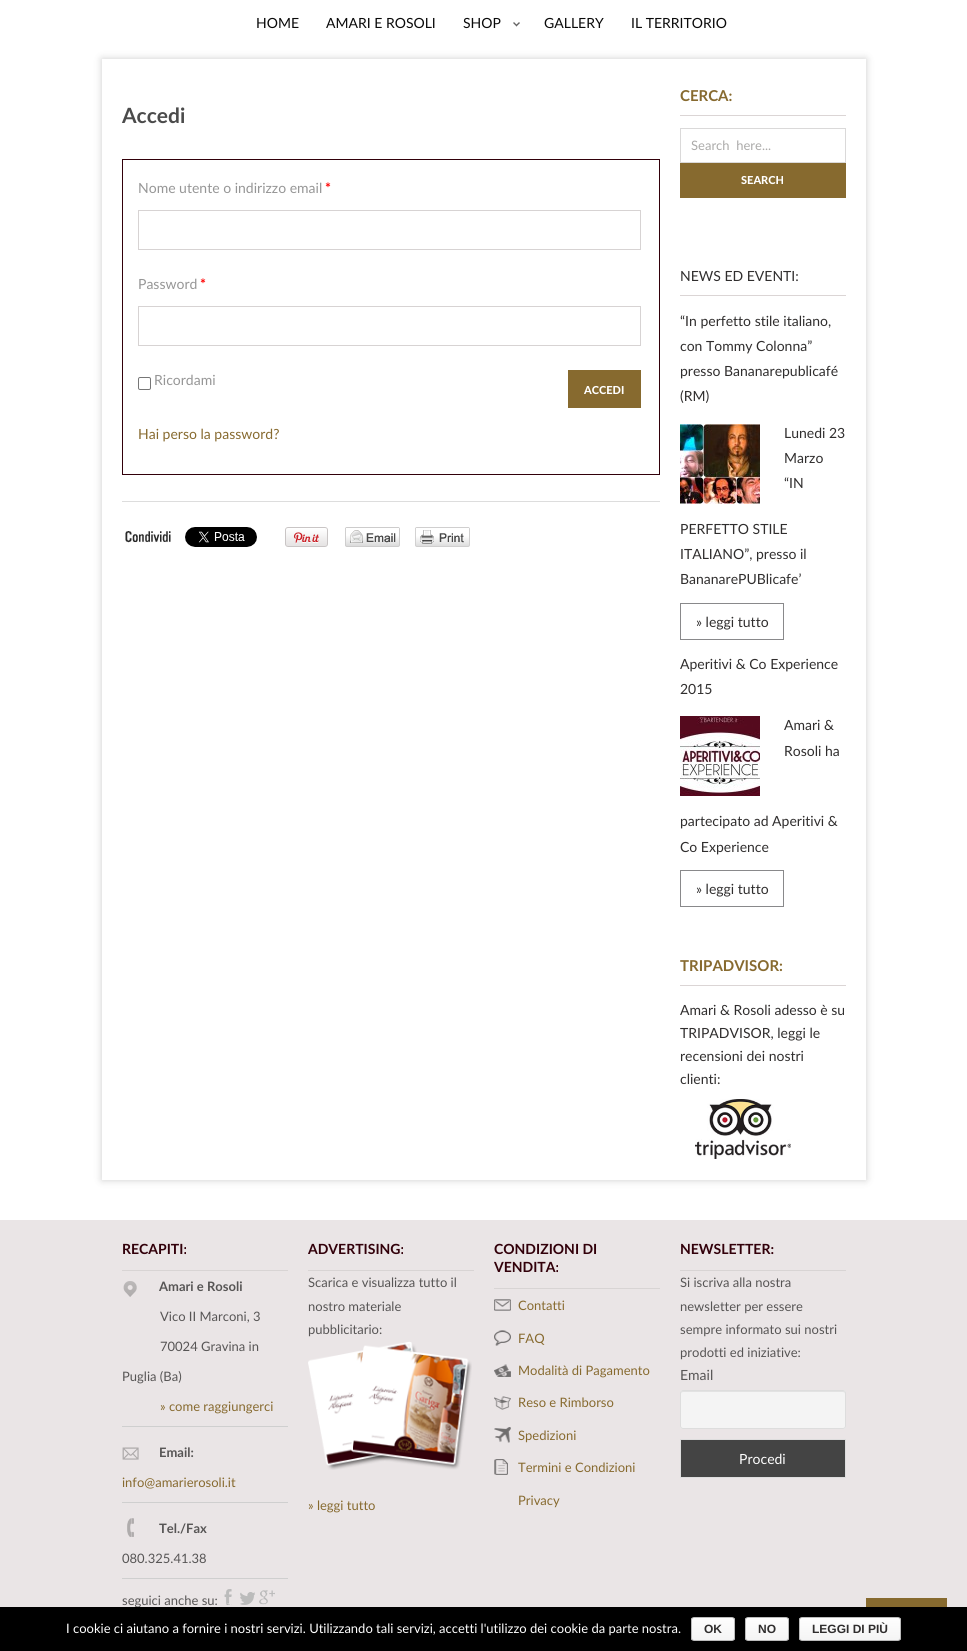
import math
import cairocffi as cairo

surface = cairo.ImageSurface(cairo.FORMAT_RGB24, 967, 1651)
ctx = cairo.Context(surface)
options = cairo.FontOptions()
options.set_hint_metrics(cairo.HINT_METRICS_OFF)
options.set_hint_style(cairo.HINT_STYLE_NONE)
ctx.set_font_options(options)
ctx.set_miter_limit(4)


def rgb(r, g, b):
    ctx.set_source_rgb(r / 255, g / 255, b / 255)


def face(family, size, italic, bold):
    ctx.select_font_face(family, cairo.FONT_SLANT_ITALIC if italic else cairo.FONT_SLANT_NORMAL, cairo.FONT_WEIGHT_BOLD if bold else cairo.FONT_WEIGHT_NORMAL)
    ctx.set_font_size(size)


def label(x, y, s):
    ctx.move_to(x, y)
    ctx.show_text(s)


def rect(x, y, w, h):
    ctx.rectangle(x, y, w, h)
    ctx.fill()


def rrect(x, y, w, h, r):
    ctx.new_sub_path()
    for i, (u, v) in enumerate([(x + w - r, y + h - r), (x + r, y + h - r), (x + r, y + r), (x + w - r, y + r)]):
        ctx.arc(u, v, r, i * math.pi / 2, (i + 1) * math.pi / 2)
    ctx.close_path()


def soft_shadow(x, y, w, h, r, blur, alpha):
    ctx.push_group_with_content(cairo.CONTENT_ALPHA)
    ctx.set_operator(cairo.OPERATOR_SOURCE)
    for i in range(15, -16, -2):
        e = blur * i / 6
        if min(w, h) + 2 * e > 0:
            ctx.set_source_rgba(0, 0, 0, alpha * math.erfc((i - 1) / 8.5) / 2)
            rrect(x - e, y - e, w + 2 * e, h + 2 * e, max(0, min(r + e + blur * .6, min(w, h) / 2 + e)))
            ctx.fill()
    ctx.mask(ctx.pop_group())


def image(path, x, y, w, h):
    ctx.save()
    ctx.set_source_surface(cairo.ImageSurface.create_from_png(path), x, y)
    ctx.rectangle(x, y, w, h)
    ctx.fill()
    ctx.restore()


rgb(255, 255, 255)
ctx.paint()
face('Lato', 14, 0, 0)
rgb(10, 10, 10)
label(256, 28, 'HOME')
label(326, 28, 'AMARI E ROSOLI')
label(463, 28, 'SHOP')
image('image0.png', 513, 22, 7, 5)
label(544, 28, 'GALLERY')
label(631, 28, 'IL TERRITORIO')
ctx.save()
ctx.set_fill_rule(cairo.FILL_RULE_EVEN_ODD)
ctx.new_path()
ctx.move_to(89, 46)
ctx.line_to(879, 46)
ctx.line_to(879, 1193)
ctx.line_to(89, 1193)
ctx.close_path()
ctx.move_to(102, 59)
ctx.line_to(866, 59)
ctx.line_to(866, 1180)
ctx.line_to(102, 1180)
ctx.close_path()
ctx.clip()
rgb(0, 0, 0)
soft_shadow(102, 59, 764, 1121, 0, 4, 0.2)
ctx.restore()
face('Lato', 21, 0, 1)
rgb(75, 75, 75)
label(122, 123, 'Accedi')
ctx.rectangle(122.5, 159.5, 537, 315)
rgb(50, 0, 10)
ctx.set_line_width(1)
ctx.stroke()
face('Lato', 14, 0, 0)
rgb(150, 150, 150)
label(138, 193, 'Nome utente o indirizzo email')
face('Lato', 14, 0, 1)
rgb(255, 0, 0)
label(325, 193, '*')
ctx.rectangle(138.5, 210.5, 502, 39)
rgb(215, 211, 211)
ctx.stroke()
face('Lato', 14, 0, 0)
rgb(150, 150, 150)
label(138, 289, 'Password')
face('Lato', 14, 0, 1)
rgb(255, 0, 0)
label(200, 289, '*')
ctx.rectangle(138.5, 306.5, 502, 39)
rgb(215, 211, 211)
ctx.stroke()
rrect(138.5, 377.5, 12, 12, 1.5)
rgb(118, 118, 118)
ctx.stroke()
face('Lato', 14, 0, 0)
rgb(150, 150, 150)
label(154, 385, 'Ricordami')
rgb(135, 106, 47)
rect(568, 370, 73, 38)
face('Lato Black', 11, 0, 0)
rgb(255, 255, 255)
label(584, 394, 'ACCEDI')
face('Lato', 14, 0, 0)
rgb(135, 106, 47)
label(138, 439, 'Hai perso la password?')
rgb(221, 221, 221)
rect(122, 501, 538, 1)
image('image1.png', 125, 531, 46, 12)
image('image2.png', 185, 527, 72, 20)
image('image3.png', 285, 527, 43, 20)
image('image4.png', 345, 527, 55, 20)
image('image5.png', 415, 527, 55, 20)
rgb(219, 213, 213)
rect(680, 115, 166, 1)
face('Lato', 15, 0, 1)
rgb(135, 106, 47)
label(680, 101, 'CERCA:')
ctx.rectangle(680.5, 128.5, 165, 34)
rgb(218, 217, 217)
ctx.stroke()
face('Lato', 13, 0, 0)
rgb(171, 170, 169)
label(691, 150, 'Search  here...')
rgb(135, 106, 47)
rect(680, 163, 166, 35)
face('Lato Black', 11, 0, 0)
rgb(255, 255, 255)
label(741, 184, 'SEARCH')
rgb(219, 213, 213)
rect(680, 295, 166, 1)
face('Lato', 14, 0, 0)
rgb(48, 46, 46)
label(680, 281, 'NEWS ED EVENTI:')
label(680, 326, '“In perfetto stile italiano,')
label(680, 351, 'con Tommy Colonna”')
label(680, 376, 'presso Bananarepublicafé')
label(680, 401, '(RM)')
image('image6.png', 680, 424, 80, 80)
label(784, 438, 'Lunedi 23')
label(784, 463, 'Marzo')
label(784, 488, '“IN')
label(680, 534, 'PERFETTO STILE')
label(680, 559, 'ITALIANO”, presso il')
label(680, 584, 'BananarePUBlicafe’')
ctx.rectangle(680.5, 603.5, 103, 36)
rgb(137, 137, 139)
ctx.stroke()
rgb(48, 46, 46)
label(696, 627, '» leggi tutto')
label(680, 669, 'Aperitivi & Co Experience')
label(680, 694, '2015')
image('image7.png', 680, 716, 80, 80)
label(784, 730, 'Amari &')
label(784, 756, 'Rosoli ha')
label(680, 826, 'partecipato ad Aperitivi &')
label(680, 852, 'Co Experience')
ctx.rectangle(680.5, 870.5, 103, 36)
rgb(137, 137, 139)
ctx.stroke()
rgb(48, 46, 46)
label(696, 894, '» leggi tutto')
rgb(219, 213, 213)
rect(680, 985, 166, 1)
face('Lato', 15, 0, 1)
rgb(135, 106, 47)
label(680, 971, 'TRIPADVISOR:')
face('Lato', 14, 0, 0)
rgb(48, 46, 46)
label(680, 1015, 'Amari & Rosoli adesso è su')
label(680, 1038, 'TRIPADVISOR, leggi le')
label(680, 1061, 'recensioni dei nostri')
label(680, 1084, 'clienti:')
image('image8.png', 695, 1099, 96, 60)
rgb(234, 229, 230)
rect(0, 1220, 967, 387)
rgb(135, 106, 47)
rect(866, 1598, 81, 9)
rgb(216, 212, 212)
rect(122, 1270, 166, 1)
face('Lato', 14, 0, 1)
rgb(50, 0, 10)
label(122, 1254, 'RECAPITI:')
rgb(207, 207, 207)
rect(122, 1426, 166, 1)
image('image9.png', 123, 1281, 14, 16)
face('Lato', 13, 0, 1)
rgb(87, 85, 85)
label(159, 1291, 'Amari e Rosoli')
face('Lato', 13, 0, 0)
label(160, 1321, 'Vico II Marconi, 3')
label(160, 1351, '70024 Gravina in')
label(122, 1381, 'Puglia (Ba)')
rgb(135, 106, 47)
label(160, 1411, '» come raggiungerci')
rgb(207, 207, 207)
rect(122, 1502, 166, 1)
image('image10.png', 122, 1447, 17, 13)
face('Lato', 13, 0, 1)
rgb(87, 85, 85)
label(159, 1457, 'Email:')
face('Lato', 13, 0, 0)
rgb(135, 106, 47)
label(122, 1487, 'info@amarierosoli.it')
rgb(207, 207, 207)
rect(122, 1578, 166, 1)
image('image11.png', 127, 1518, 7, 19)
face('Lato', 13, 0, 1)
rgb(87, 85, 85)
label(159, 1533, 'Tel./Fax')
face('Lato', 13, 0, 0)
label(122, 1563, '080.325.41.38')
label(122, 1605, 'seguici anche su:')
image('image12.png', 224, 1589, 8, 16)
image('image13.png', 240, 1592, 15, 13)
image('image14.png', 259, 1590, 16, 15)
rgb(216, 212, 212)
rect(308, 1270, 166, 1)
face('Lato', 14, 0, 1)
rgb(50, 0, 10)
label(308, 1254, 'ADVERTISING:')
face('Lato', 13, 0, 0)
rgb(87, 85, 85)
label(308, 1287, 'Scarica e visualizza tutto il')
label(308, 1311, 'nostro materiale')
label(308, 1334, 'pubblicitario:')
image('image15.png', 308, 1341, 164, 129)
rgb(135, 106, 47)
label(308, 1510, '» leggi tutto')
rgb(216, 212, 212)
rect(494, 1288, 166, 1)
face('Lato', 14, 0, 1)
rgb(50, 0, 10)
label(494, 1254, 'CONDIZIONI DI')
label(494, 1272, 'VENDITA:')
image('image16.png', 494, 1299, 17, 12)
face('Lato', 13, 0, 0)
rgb(135, 106, 47)
label(518, 1310, 'Contatti')
image('image17.png', 494, 1330, 17, 16)
label(518, 1343, 'FAQ')
image('image18.png', 494, 1364, 17, 13)
label(518, 1375, 'Modalità di Pagamento')
image('image19.png', 494, 1396, 17, 14)
label(518, 1407, 'Reso e Rimborso')
image('image20.png', 494, 1427, 17, 16)
label(518, 1440, 'Spedizioni')
image('image21.png', 494, 1459, 14, 16)
label(518, 1472, 'Termini e Condizioni')
label(518, 1505, 'Privacy')
rgb(216, 212, 212)
rect(680, 1270, 166, 1)
face('Lato', 14, 0, 1)
rgb(50, 0, 10)
label(680, 1254, 'NEWSLETTER:')
face('Lato', 13, 0, 0)
rgb(87, 85, 85)
label(680, 1287, 'Si iscriva alla nostra')
label(680, 1311, 'newsletter per essere')
label(680, 1334, 'sempre informato sui nostri')
label(680, 1357, 'prodotti ed iniziative:')
face('Lato', 14, 0, 0)
label(680, 1380, 'Email')
rgb(244, 244, 244)
rrect(680, 1390, 166, 39, 3)
ctx.fill()
rgb(226, 226, 226)
ctx.new_path()
ctx.move_to(683, 1392)
ctx.line_to(843, 1392)
ctx.curve_to(844, 1392, 845, 1393, 845, 1394)
ctx.curve_to(845, 1393, 845, 1391, 843, 1391)
ctx.line_to(683, 1391)
ctx.curve_to(681, 1391, 681, 1393, 681, 1394)
ctx.curve_to(681, 1393, 682, 1392, 683, 1392)
ctx.close_path()
ctx.fill()
rrect(680.5, 1390.5, 165, 38, 2.5)
rgb(221, 221, 221)
ctx.stroke()
rgb(68, 68, 68)
ctx.rectangle(680.5, 1439.5, 165, 38)
ctx.fill_preserve()
rgb(221, 221, 221)
ctx.stroke()
rgb(255, 255, 255)
label(739, 1464, 'Procedi')
rgb(0, 0, 0)
rect(0, 1607, 967, 44)
face('Lato', 13, 0, 0)
rgb(255, 255, 255)
label(66, 1633, 'I cookie ci aiutano a fornire i nostri servizi. Utilizzando tali servizi, accetti l\'utilizzo dei cookie da parte nostra.')
ctx.save()
rrect(691, 1617, 44, 24, 3)
ctx.clip()
gradient = cairo.LinearGradient(713, 1618, 713, 1640)
gradient.add_color_stop_rgba(0, 0.996, 0.996, 0.996, 1)
gradient.add_color_stop_rgba(1, 0.957, 0.957, 0.957, 1)
ctx.set_source(gradient)
rect(691, 1618, 44, 22)
ctx.restore()
rrect(691.5, 1617.5, 43, 23, 2.5)
rgb(187, 187, 187)
ctx.stroke()
face('Liberation Sans', 12, 0, 1)
rgb(48, 46, 46)
label(704, 1633, 'OK')
ctx.save()
rrect(745, 1617, 44, 24, 3)
ctx.clip()
gradient = cairo.LinearGradient(767, 1618, 767, 1640)
gradient.add_color_stop_rgba(0, 0.996, 0.996, 0.996, 1)
gradient.add_color_stop_rgba(1, 0.957, 0.957, 0.957, 1)
ctx.set_source(gradient)
rect(745, 1618, 44, 22)
ctx.restore()
rrect(745.5, 1617.5, 43, 23, 2.5)
rgb(187, 187, 187)
ctx.stroke()
rgb(48, 46, 46)
label(758, 1633, 'NO')
ctx.save()
rrect(799, 1617, 102, 24, 3)
ctx.clip()
gradient = cairo.LinearGradient(850, 1618, 850, 1640)
gradient.add_color_stop_rgba(0, 0.996, 0.996, 0.996, 1)
gradient.add_color_stop_rgba(1, 0.957, 0.957, 0.957, 1)
ctx.set_source(gradient)
rect(799, 1618, 102, 22)
ctx.restore()
rrect(799.5, 1617.5, 101, 23, 2.5)
rgb(187, 187, 187)
ctx.stroke()
rgb(48, 46, 46)
label(812, 1633, 'LEGGI DI PIÙ')
surface.write_to_png('render.png')
